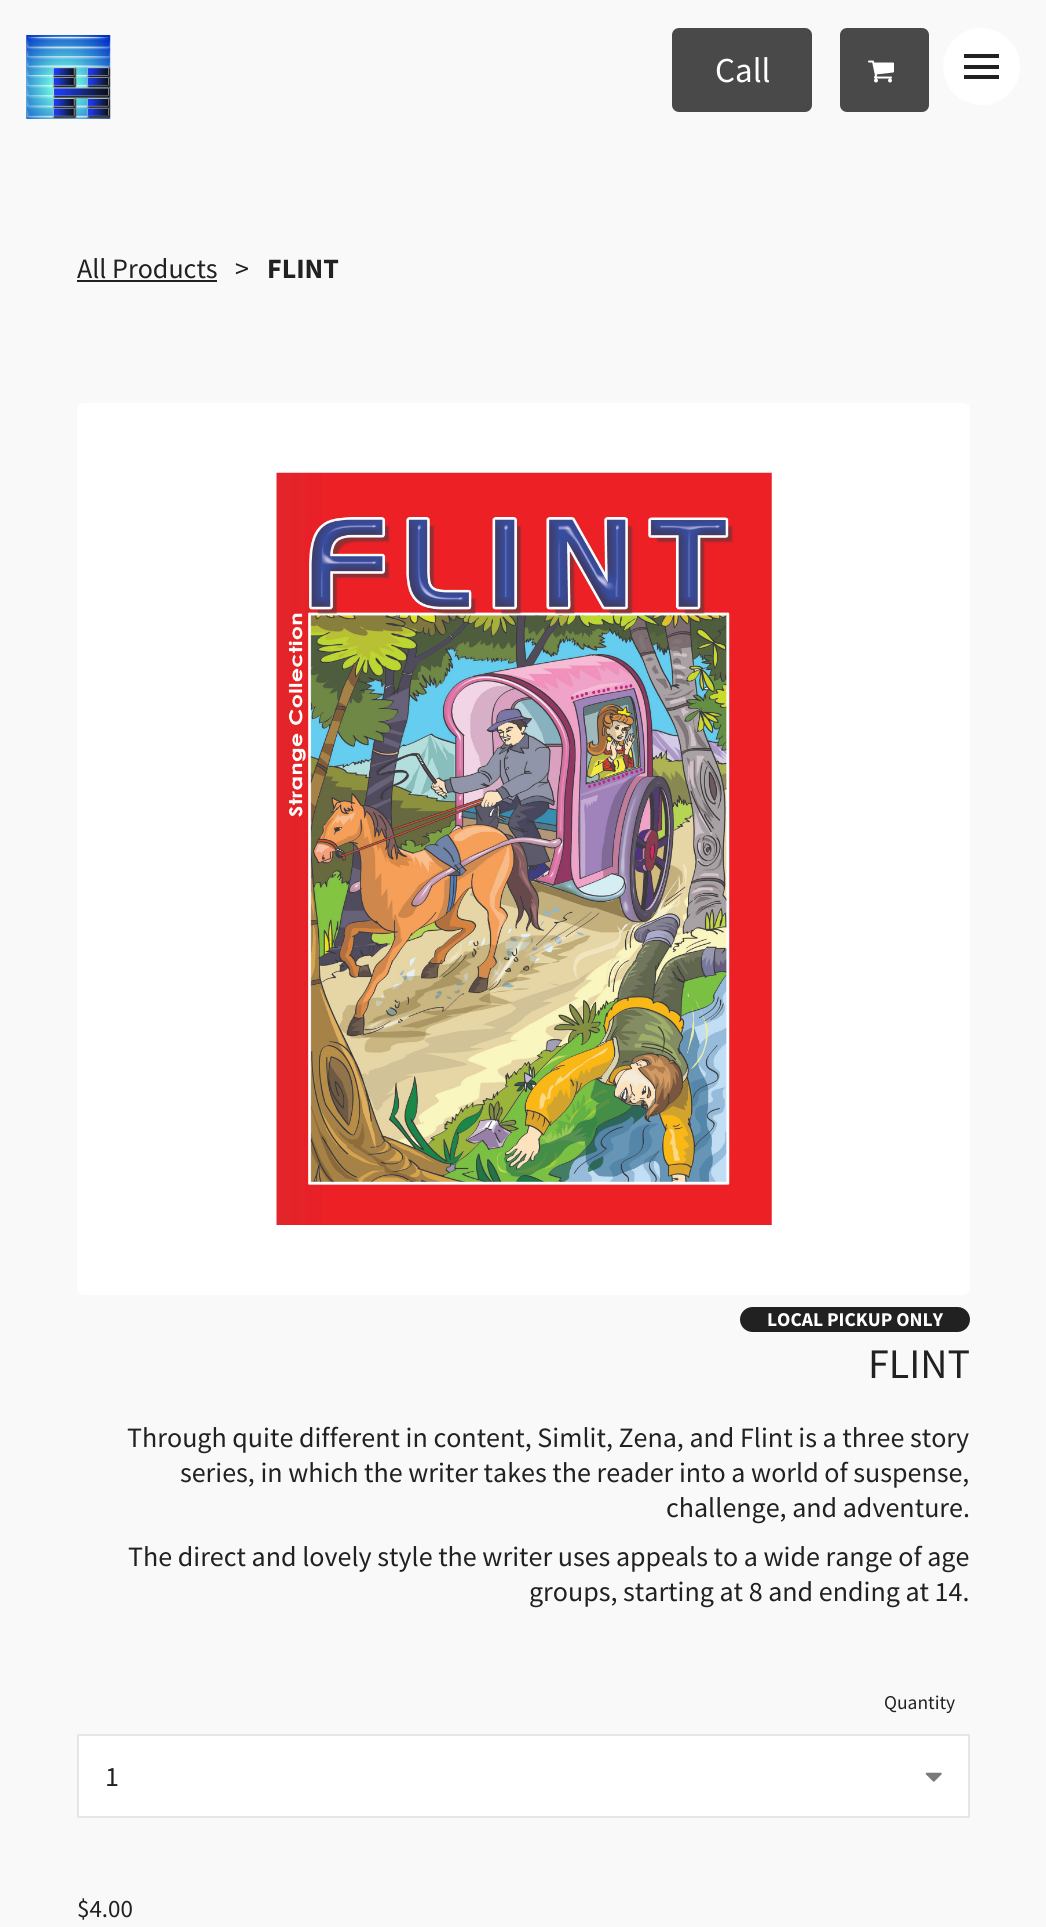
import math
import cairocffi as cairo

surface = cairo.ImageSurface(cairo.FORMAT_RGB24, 1046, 1927)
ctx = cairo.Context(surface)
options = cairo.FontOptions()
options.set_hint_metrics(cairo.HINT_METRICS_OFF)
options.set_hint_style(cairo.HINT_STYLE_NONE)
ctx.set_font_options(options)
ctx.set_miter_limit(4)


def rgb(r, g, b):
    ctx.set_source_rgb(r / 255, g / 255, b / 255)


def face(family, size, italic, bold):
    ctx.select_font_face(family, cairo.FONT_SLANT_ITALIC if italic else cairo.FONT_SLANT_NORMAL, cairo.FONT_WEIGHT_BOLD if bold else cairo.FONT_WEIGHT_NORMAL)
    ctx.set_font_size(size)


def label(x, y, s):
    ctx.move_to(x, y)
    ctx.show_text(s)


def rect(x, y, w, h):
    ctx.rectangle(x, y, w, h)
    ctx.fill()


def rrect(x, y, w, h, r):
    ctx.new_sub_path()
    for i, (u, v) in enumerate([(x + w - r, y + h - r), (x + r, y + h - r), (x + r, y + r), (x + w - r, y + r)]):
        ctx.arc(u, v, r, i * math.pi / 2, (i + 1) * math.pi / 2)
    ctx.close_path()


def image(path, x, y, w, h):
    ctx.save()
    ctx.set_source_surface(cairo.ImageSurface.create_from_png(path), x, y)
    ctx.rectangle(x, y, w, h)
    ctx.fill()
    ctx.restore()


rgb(249, 249, 249)
ctx.paint()
image('image0.png', 26, 35, 85, 84)
rgb(73, 73, 73)
rrect(672, 28, 140, 84, 7)
ctx.fill()
face('Source Sans Pro', 35, 0, 0)
rgb(255, 255, 255)
label(715, 82, 'Call')
rgb(73, 73, 73)
rrect(840, 28, 89, 84, 7)
ctx.fill()
image('image1.png', 868, 60, 26, 23)
rgb(255, 255, 255)
ctx.arc(981.5, 66.5, 38.5, 0, 2 * math.pi)
ctx.fill()
rgb(33, 33, 33)
rect(964, 54, 35, 4)
rect(964, 65, 35, 4)
rect(964, 75, 35, 4)
face('Source Sans Pro', 28, 0, 0)
label(77, 278, 'All Products')
rect(77, 280, 140, 2)
label(235, 278, '>')
face('Source Sans Pro', 28, 0, 1)
label(267, 278, 'FLINT')
rgb(255, 255, 255)
rrect(77, 403, 893, 892, 7)
ctx.fill()
image('image2.png', 276, 472, 496, 753)
rgb(33, 33, 33)
rrect(740, 1307, 230, 25, 12.5)
ctx.fill()
face('Source Sans Pro', 19.5, 0, 1)
rgb(255, 255, 255)
label(767, 1326, 'LOCAL PICKUP ONLY')
face('Source Sans Pro', 42, 0, 0)
rgb(33, 33, 33)
label(868, 1378, 'FLINT')
face('Source Sans Pro', 28, 0, 0)
label(127, 1447, 'Through quite different in content, Simlit, Zena, and Flint is a three story')
label(180, 1482, 'series, in which the writer takes the reader into a world of suspense,')
label(666, 1517, 'challenge, and adventure.')
label(128, 1566, 'The direct and lovely style the writer uses appeals to a wide range of age')
label(529, 1601, 'groups, starting at 8 and ending at 14.')
face('Source Sans Pro', 19.5, 0, 0)
label(884, 1709, 'Quantity')
rgb(255, 255, 255)
ctx.rectangle(78, 1735, 891, 82)
ctx.fill_preserve()
rgb(230, 230, 230)
ctx.stroke()
face('Source Sans Pro', 28, 0, 0)
rgb(33, 33, 33)
label(105, 1786, '1')
image('image3.png', 925, 1772, 17, 10)
face('Source Sans Pro', 25, 0, 0)
label(77, 1917, '$4.00')
surface.write_to_png('render.png')
